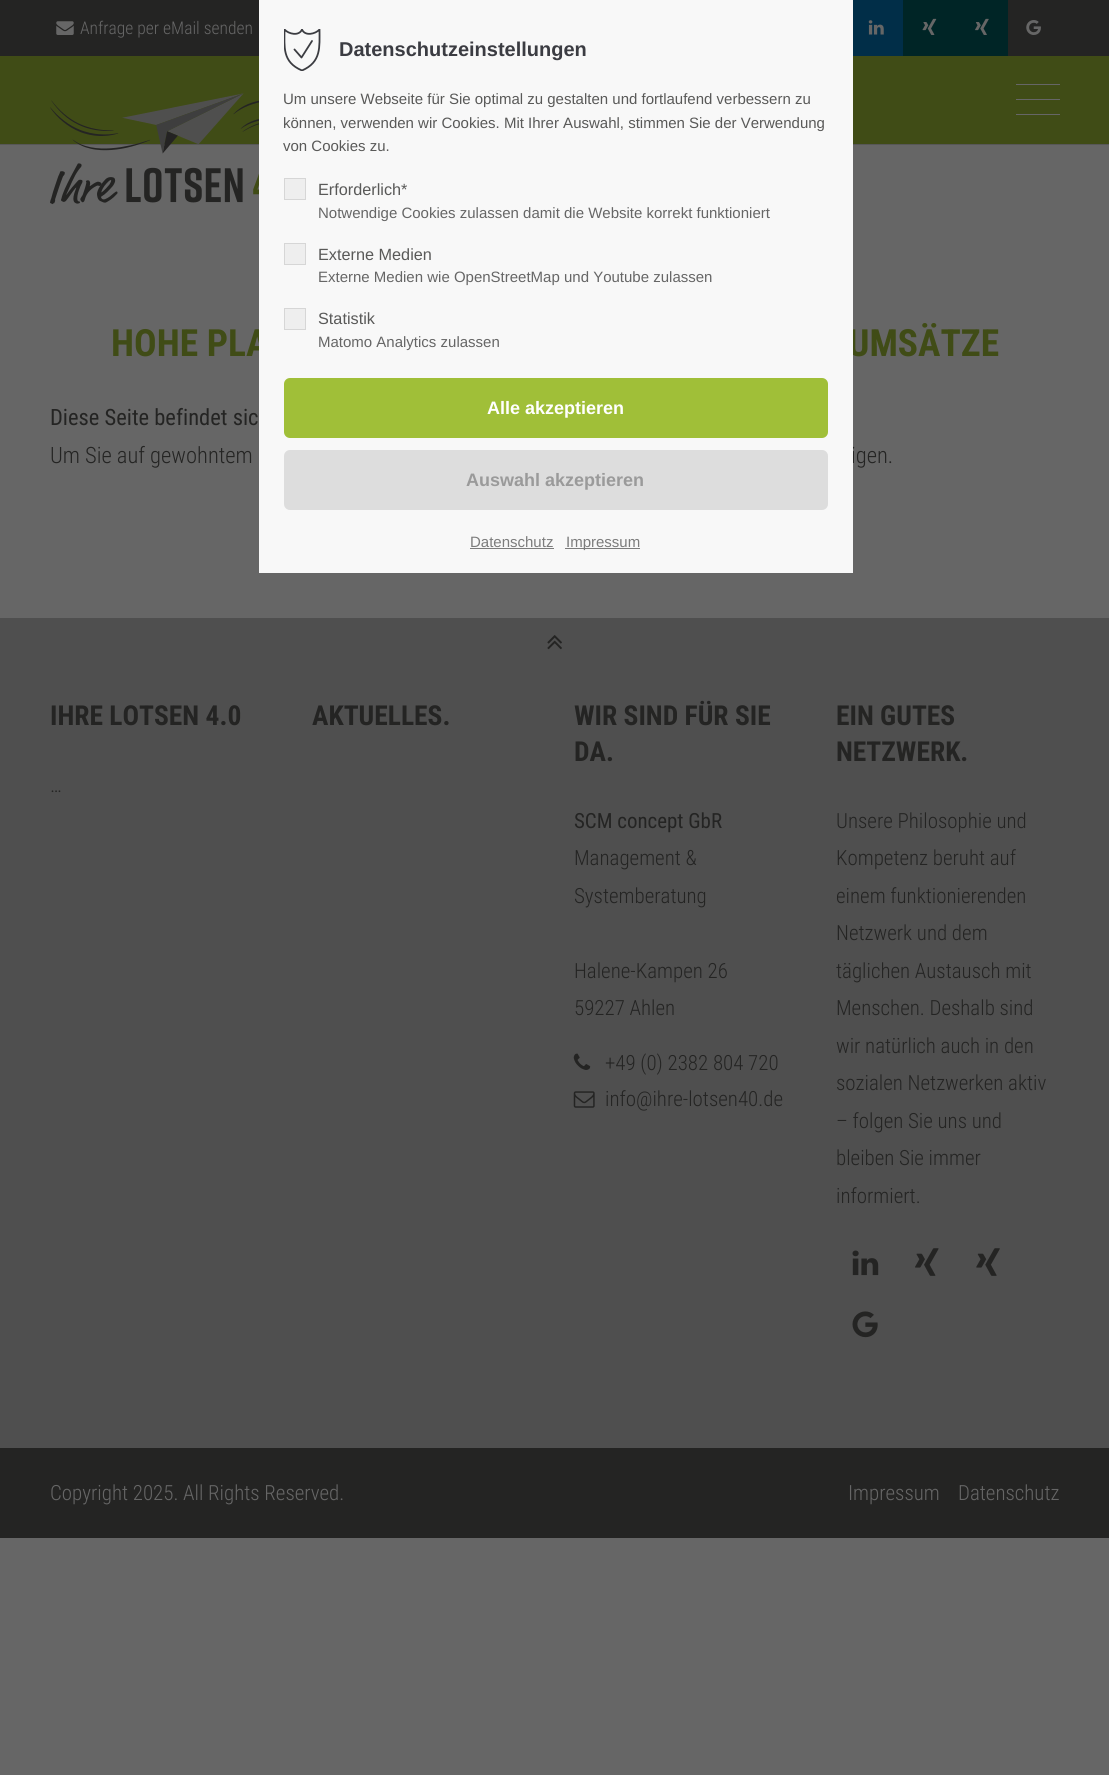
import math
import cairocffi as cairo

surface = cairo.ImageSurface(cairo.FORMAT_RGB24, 1109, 1775)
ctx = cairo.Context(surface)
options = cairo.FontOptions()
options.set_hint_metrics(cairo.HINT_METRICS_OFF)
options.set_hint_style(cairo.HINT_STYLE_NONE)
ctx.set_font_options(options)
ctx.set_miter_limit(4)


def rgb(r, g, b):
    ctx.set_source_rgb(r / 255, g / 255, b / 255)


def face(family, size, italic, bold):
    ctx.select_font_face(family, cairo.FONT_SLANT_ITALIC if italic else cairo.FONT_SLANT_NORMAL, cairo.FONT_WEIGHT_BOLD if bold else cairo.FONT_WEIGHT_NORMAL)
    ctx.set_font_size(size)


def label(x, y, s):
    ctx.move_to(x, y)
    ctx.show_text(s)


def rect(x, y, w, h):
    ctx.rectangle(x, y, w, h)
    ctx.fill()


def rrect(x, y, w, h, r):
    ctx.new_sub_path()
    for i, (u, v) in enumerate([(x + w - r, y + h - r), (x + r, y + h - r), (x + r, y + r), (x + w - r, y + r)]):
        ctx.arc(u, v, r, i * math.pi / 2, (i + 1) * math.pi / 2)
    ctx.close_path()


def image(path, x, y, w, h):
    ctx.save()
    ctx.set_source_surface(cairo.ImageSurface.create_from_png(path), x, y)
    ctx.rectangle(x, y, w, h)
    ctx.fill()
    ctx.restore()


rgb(102, 102, 102)
ctx.paint()
rgb(36, 36, 35)
rect(0, 0, 1109, 56)
image('image0.png', 56, 21, 18, 14)
face('Roboto Condensed Light', 17.5, 0, 0)
rgb(102, 102, 102)
label(80, 34, 'Anfrage per eMail senden')
rgb(1, 46, 72)
rect(853, 0, 50, 56)
image('image1.png', 868, 20, 16, 15)
rgb(0, 37, 38)
rect(903, 0, 105, 56)
image('image2.png', 922, 18, 15, 17)
image('image3.png', 975, 18, 14, 17)
image('image4.png', 1026, 20, 15, 15)
rgb(64, 76, 22)
rect(0, 56, 1109, 88)
rgb(87, 87, 87)
rect(0, 144, 1109, 1)
image('image5.png', 50, 93, 209, 112)
rgb(102, 102, 102)
rect(1016, 99, 44, 1)
rect(1016, 84, 44, 1)
rect(1016, 114, 44, 1)
face('Roboto Condensed', 37.5, 0, 1)
rgb(64, 76, 22)
label(111, 356, 'HOHE PLA')
label(848, 356, 'UMSÄTZE')
face('Roboto Condensed', 22.5, 0, 0)
rgb(36, 36, 35)
label(50, 425, 'Diese Seite befindet sic')
face('Roboto Condensed Light', 22.5, 0, 0)
label(50, 463, 'Um Sie auf gewohntem')
label(851, 463, 'igen.')
rgb(79, 79, 79)
rect(0, 618, 1109, 830)
image('image6.png', 547, 635, 15, 15)
face('Roboto Condensed', 27.5, 0, 1)
rgb(36, 36, 35)
label(50, 725, 'IHRE LOTSEN 4.0')
face('Roboto Condensed Light', 20.9, 0, 0)
label(50, 792, '…')
face('Roboto Condensed', 27.5, 0, 1)
label(312, 725, 'AKTUELLES.')
label(574, 725, 'WIR SIND FÜR SIE')
label(574, 761, 'DA.')
face('Roboto Condensed', 20.9, 0, 0)
label(574, 828, 'SCM concept GbR')
face('Roboto Condensed Light', 20.9, 0, 0)
label(574, 865, 'Management &')
label(574, 903, 'Systemberatung')
label(574, 978, 'Halene-Kampen 26')
label(574, 1015, '59227 Ahlen')
image('image7.png', 573, 1053, 18, 17)
label(605, 1070, '+49 (0) 2382 804 720')
image('image8.png', 573, 1091, 22, 17)
label(605, 1106, 'info@ihre-lotsen40.de')
face('Roboto Condensed', 27.5, 0, 1)
label(836, 725, 'EIN GUTES')
label(836, 761, 'NETZWERK.')
face('Roboto Condensed Light', 20.9, 0, 0)
label(836, 828, 'Unsere Philosophie und')
label(836, 865, 'Kompetenz beruht auf')
label(836, 903, 'einem funktionierenden')
label(836, 940, 'Netzwerk und dem')
label(836, 978, 'täglichen Austausch mit')
label(836, 1015, 'Menschen. Deshalb sind')
label(836, 1053, 'wir natürlich auch in den')
label(836, 1090, 'sozialen Netzwerken aktiv')
label(836, 1128, '– folgen Sie uns und')
label(836, 1165, 'bleiben Sie immer')
label(836, 1203, 'informiert.')
image('image9.png', 852, 1250, 27, 26)
image('image10.png', 915, 1248, 24, 28)
image('image11.png', 976, 1248, 24, 28)
image('image12.png', 852, 1311, 26, 27)
rect(0, 1448, 1109, 90)
rgb(102, 102, 102)
label(50, 1500, 'Copyright 2025. All Rights Reserved.')
label(848, 1500, 'Impressum')
label(958, 1500, 'Datenschutz')
rgb(248, 248, 248)
rect(259, 0, 594, 573)
ctx.save()
ctx.rectangle(284, 29, 37, 42)
ctx.clip()
ctx.new_path()
ctx.move_to(302, 70.5)
ctx.curve_to(282, 62, 284.5, 47, 284.5, 29.5)
ctx.curve_to(288.5, 34, 299, 36.5, 302, 29.5)
ctx.curve_to(305, 36.5, 315.5, 34, 319.5, 29.5)
ctx.curve_to(319.5, 47, 321.5, 62, 302, 70.5)
ctx.close_path()
rgb(59, 60, 65)
ctx.set_line_width(1.8)
ctx.set_line_cap(cairo.LINE_CAP_ROUND)
ctx.set_line_join(cairo.LINE_JOIN_ROUND)
ctx.stroke()
ctx.restore()
ctx.new_path()
ctx.move_to(294.5, 49.5)
ctx.line_to(301.5, 57.5)
ctx.line_to(312, 41)
rgb(59, 60, 65)
ctx.set_line_width(1.8)
ctx.set_line_cap(cairo.LINE_CAP_ROUND)
ctx.set_line_join(cairo.LINE_JOIN_ROUND)
ctx.stroke()
face('Liberation Sans', 20, 0, 1)
rgb(59, 60, 66)
label(339, 56, 'Datenschutzeinstellungen')
face('Liberation Sans', 15, 0, 0)
rgb(89, 89, 88)
label(283, 104, 'Um unsere Webseite für Sie optimal zu gestalten und fortlaufend verbessern zu')
label(283, 128, 'können, verwenden wir Cookies. Mit Ihrer Auswahl, stimmen Sie der Verwendung')
label(283, 151, 'von Cookies zu.')
rgb(238, 238, 238)
ctx.rectangle(284.5, 178.5, 21, 21)
ctx.fill_preserve()
rgb(214, 214, 214)
ctx.set_line_width(1)
ctx.set_line_cap(cairo.LINE_CAP_BUTT)
ctx.set_line_join(cairo.LINE_JOIN_MITER)
ctx.stroke()
face('Liberation Sans', 16.25, 0, 0)
rgb(89, 89, 88)
label(318, 195, 'Erforderlich*')
face('Liberation Sans', 15, 0, 0)
rgb(102, 102, 102)
label(318, 218, 'Notwendige Cookies zulassen damit die Website korrekt funktioniert')
rgb(238, 238, 238)
ctx.rectangle(284.5, 243.5, 21, 21)
ctx.fill_preserve()
rgb(214, 214, 214)
ctx.stroke()
face('Liberation Sans', 16.25, 0, 0)
rgb(89, 89, 88)
label(318, 260, 'Externe Medien')
face('Liberation Sans', 15, 0, 0)
rgb(102, 102, 102)
label(318, 282, 'Externe Medien wie OpenStreetMap und Youtube zulassen')
rgb(238, 238, 238)
ctx.rectangle(284.5, 308.5, 21, 21)
ctx.fill_preserve()
rgb(214, 214, 214)
ctx.stroke()
face('Liberation Sans', 16.25, 0, 0)
rgb(89, 89, 88)
label(318, 324, 'Statistik')
face('Liberation Sans', 15, 0, 0)
rgb(102, 102, 102)
label(318, 347, 'Matomo Analytics zulassen')
rgb(160, 191, 56)
rrect(284, 378, 544, 60, 6)
ctx.fill()
face('Liberation Sans', 18, 0, 1)
rgb(255, 255, 255)
label(487, 414, 'Alle akzeptieren')
rgb(221, 221, 221)
rrect(284, 450, 544, 60, 6)
ctx.fill()
rgb(154, 154, 154)
label(466, 486, 'Auswahl akzeptieren')
face('Liberation Sans', 15, 0, 0)
rgb(124, 124, 124)
label(470, 547, 'Datenschutz')
rect(470, 548, 84, 1)
rect(565, 548, 75, 1)
label(566, 547, 'Impressum')
surface.write_to_png('render.png')
